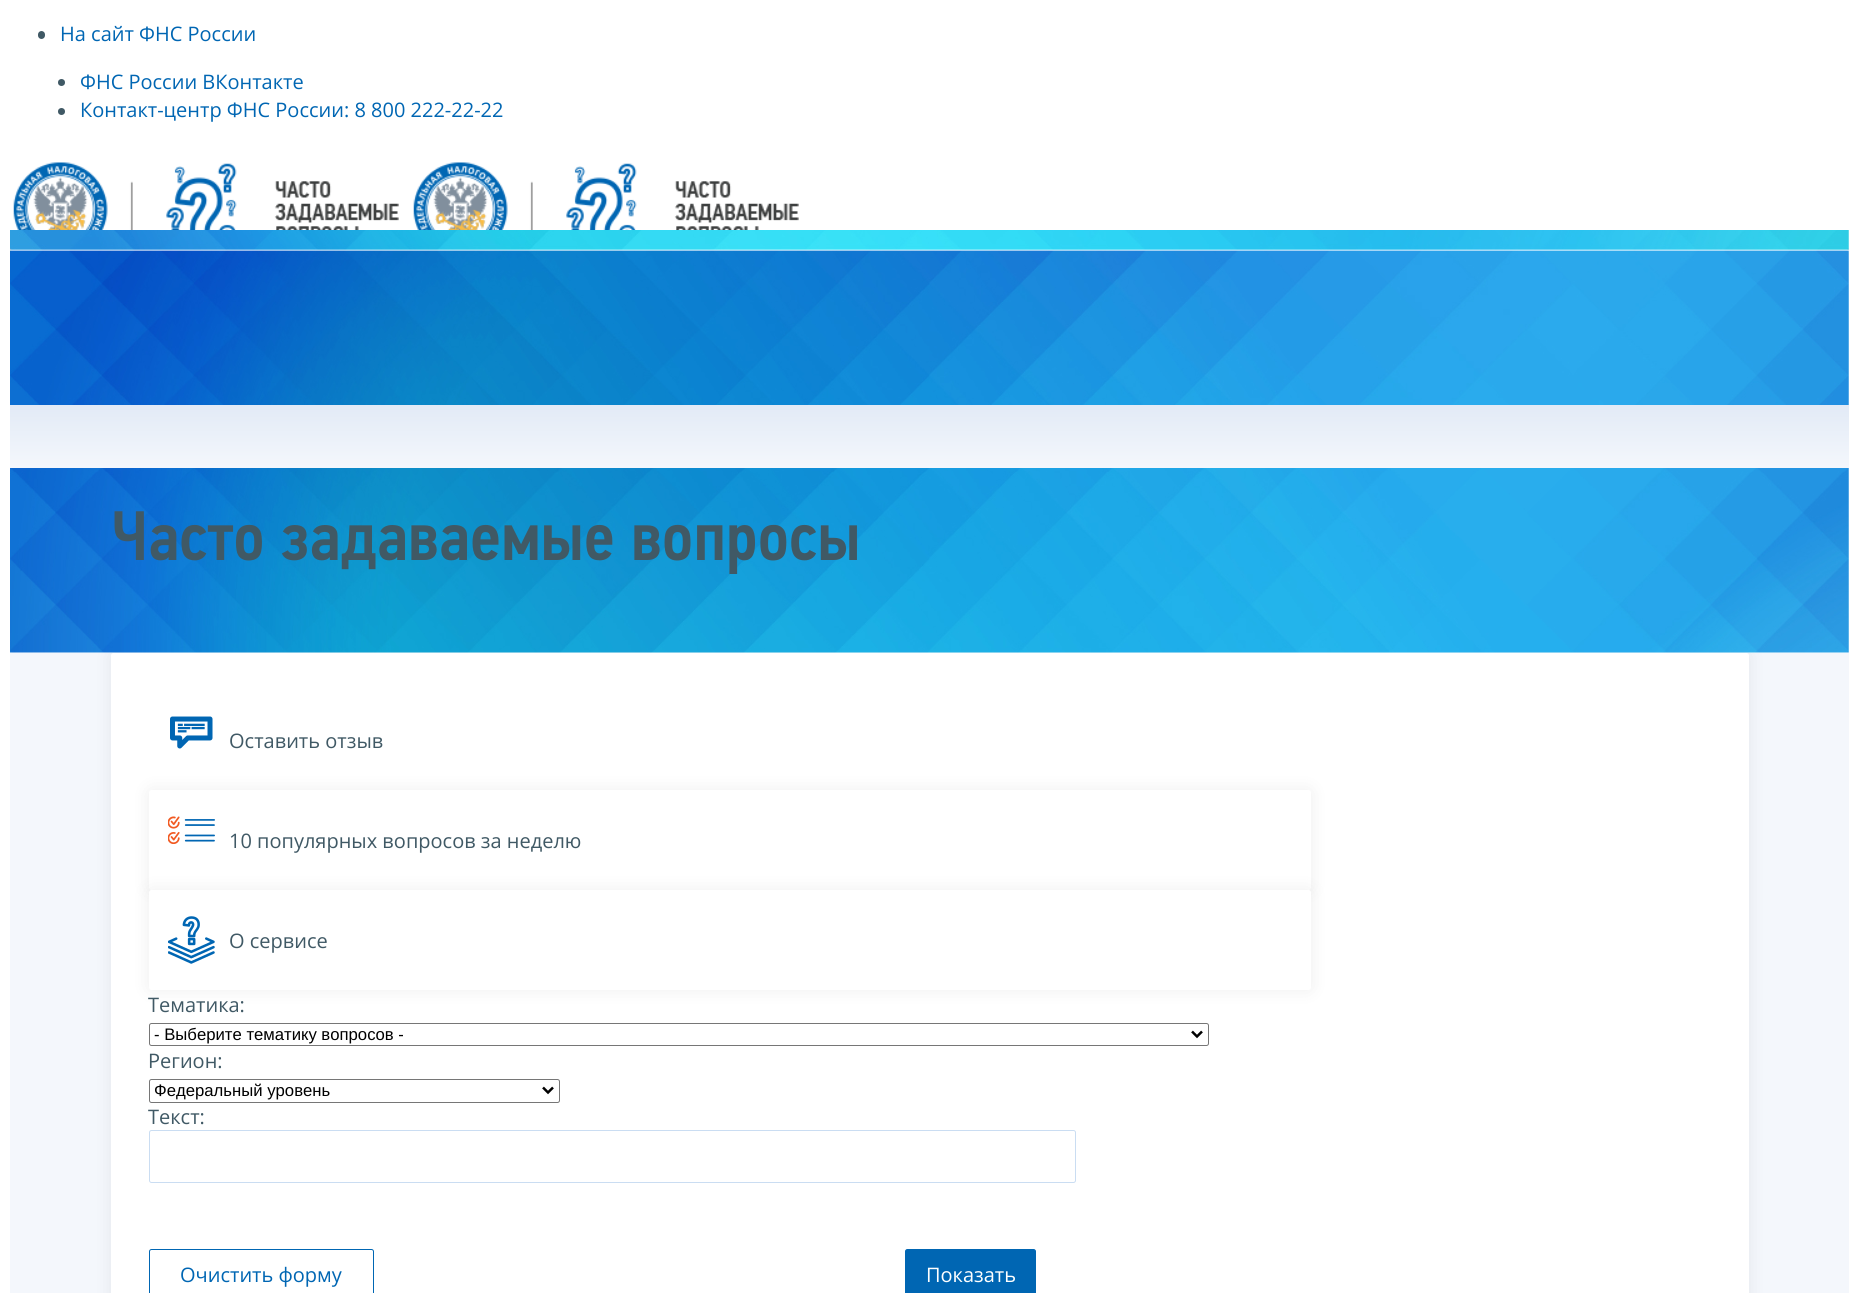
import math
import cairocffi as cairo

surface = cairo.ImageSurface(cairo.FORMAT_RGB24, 1858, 1293)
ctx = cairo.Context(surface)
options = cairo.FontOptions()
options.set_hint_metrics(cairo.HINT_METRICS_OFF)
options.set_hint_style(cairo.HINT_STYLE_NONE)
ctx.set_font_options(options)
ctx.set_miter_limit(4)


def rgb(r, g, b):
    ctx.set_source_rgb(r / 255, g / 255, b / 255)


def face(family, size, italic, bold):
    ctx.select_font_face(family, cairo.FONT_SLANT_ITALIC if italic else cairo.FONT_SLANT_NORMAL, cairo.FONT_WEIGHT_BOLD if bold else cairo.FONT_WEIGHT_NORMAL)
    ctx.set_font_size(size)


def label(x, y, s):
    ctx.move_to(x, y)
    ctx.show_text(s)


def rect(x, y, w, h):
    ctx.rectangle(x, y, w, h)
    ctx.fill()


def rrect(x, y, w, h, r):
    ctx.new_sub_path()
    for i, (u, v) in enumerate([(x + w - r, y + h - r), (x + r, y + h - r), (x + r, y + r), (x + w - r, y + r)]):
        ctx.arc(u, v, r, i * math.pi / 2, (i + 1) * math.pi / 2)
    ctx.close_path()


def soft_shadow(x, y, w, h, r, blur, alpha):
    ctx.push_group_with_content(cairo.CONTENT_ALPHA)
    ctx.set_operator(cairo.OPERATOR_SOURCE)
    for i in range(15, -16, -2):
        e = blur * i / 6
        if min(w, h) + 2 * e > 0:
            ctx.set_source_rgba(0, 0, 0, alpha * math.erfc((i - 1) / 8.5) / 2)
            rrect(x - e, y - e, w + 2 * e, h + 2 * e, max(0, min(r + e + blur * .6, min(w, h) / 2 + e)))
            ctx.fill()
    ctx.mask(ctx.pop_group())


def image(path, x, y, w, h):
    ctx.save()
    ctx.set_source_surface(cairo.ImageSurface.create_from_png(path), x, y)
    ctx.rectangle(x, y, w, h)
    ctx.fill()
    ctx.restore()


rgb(255, 255, 255)
ctx.paint()
rgb(64, 89, 101)
rrect(38, 31, 7, 8, 3.5)
ctx.fill()
face('Open Sans', 20, 0, 0)
rgb(0, 102, 179)
label(60, 41, 'На сайт ФНС России')
rgb(64, 89, 101)
ctx.new_path()
ctx.arc(61.5, 82.5, 3.5, 0, 2 * math.pi)
ctx.fill()
rgb(0, 102, 179)
label(80, 89, 'ФНС России ВКонтакте')
rgb(64, 89, 101)
ctx.new_path()
ctx.arc(61.5, 111.5, 3.5, 0, 2 * math.pi)
ctx.fill()
rgb(0, 102, 179)
label(80, 117, 'Контакт-центр ФНС России: 8 800 222-22-22')
image('image0.png', 13, 162, 386, 68)
image('image1.png', 413, 162, 386, 68)
rgb(244, 247, 252)
rect(10, 653, 1839, 640)
rgb(0, 0, 0)
soft_shadow(111, 653, 1638, 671, 2.5, 9.5, 0.07)
image('image2.png', 10, 230, 1839, 423)
gradient = cairo.LinearGradient(929, 405, 929, 468)
gradient.add_color_stop_rgba(0, 0.886, 0.918, 0.965, 1)
gradient.add_color_stop_rgba(1, 0.957, 0.969, 0.988, 1)
ctx.set_source(gradient)
rect(10, 405, 1839, 63)
image('image3.png', 114, 511, 743, 63)
rgb(255, 255, 255)
rrect(111, 653, 1638, 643, 2.5)
ctx.fill()
image('image4.png', 170, 716, 43, 33)
rgb(64, 89, 101)
label(229, 748, 'Оставить отзыв')
rgb(0, 0, 0)
soft_shadow(149, 790, 1162, 100, 2.5, 9.5, 0.07)
rgb(255, 255, 255)
rrect(149, 790, 1162, 100, 2.5)
ctx.fill()
image('image5.png', 168, 816, 47, 28)
rgb(64, 89, 101)
label(229, 848, '10 популярных вопросов за неделю')
rgb(0, 0, 0)
soft_shadow(149, 890, 1162, 100, 2.5, 9.5, 0.07)
rgb(255, 255, 255)
rrect(149, 890, 1162, 100, 2.5)
ctx.fill()
image('image6.png', 168, 916, 47, 48)
rgb(64, 89, 101)
label(229, 948, 'О сервисе')
label(148, 1012, 'Тематика:')
rrect(149.5, 1023.5, 1059, 22, 2)
rgb(118, 118, 118)
ctx.set_line_width(1)
ctx.stroke()
ctx.new_path()
ctx.move_to(1192, 1031.5)
ctx.line_to(1197, 1036.5)
ctx.line_to(1202, 1031.5)
rgb(0, 0, 0)
ctx.set_line_width(2.5)
ctx.stroke()
face('Liberation Sans', 16.7, 0, 0)
label(154, 1040, '- Выберите тематику вопросов -')
face('Open Sans', 20, 0, 0)
rgb(64, 89, 101)
label(148, 1068, 'Регион:')
rrect(149.5, 1079.5, 410, 23, 2)
rgb(118, 118, 118)
ctx.set_line_width(1)
ctx.stroke()
ctx.new_path()
ctx.move_to(543, 1087.5)
ctx.line_to(548, 1092.5)
ctx.line_to(553, 1087.5)
rgb(0, 0, 0)
ctx.set_line_width(2.5)
ctx.stroke()
face('Liberation Sans', 16.7, 0, 0)
label(154, 1096, 'Федеральный уровень')
face('Open Sans', 20, 0, 0)
rgb(64, 89, 101)
label(148, 1124, 'Текст:')
rrect(149.5, 1130.5, 926, 52, 2)
rgb(202, 221, 242)
ctx.set_line_width(1)
ctx.stroke()
rrect(149.5, 1249.5, 224, 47, 2)
rgb(0, 102, 179)
ctx.stroke()
label(180, 1282, 'Очистить форму')
rrect(905.5, 1249.5, 130, 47, 2)
ctx.fill_preserve()
ctx.stroke()
rgb(255, 255, 255)
label(926, 1282, 'Показать')
surface.write_to_png('render.png')
